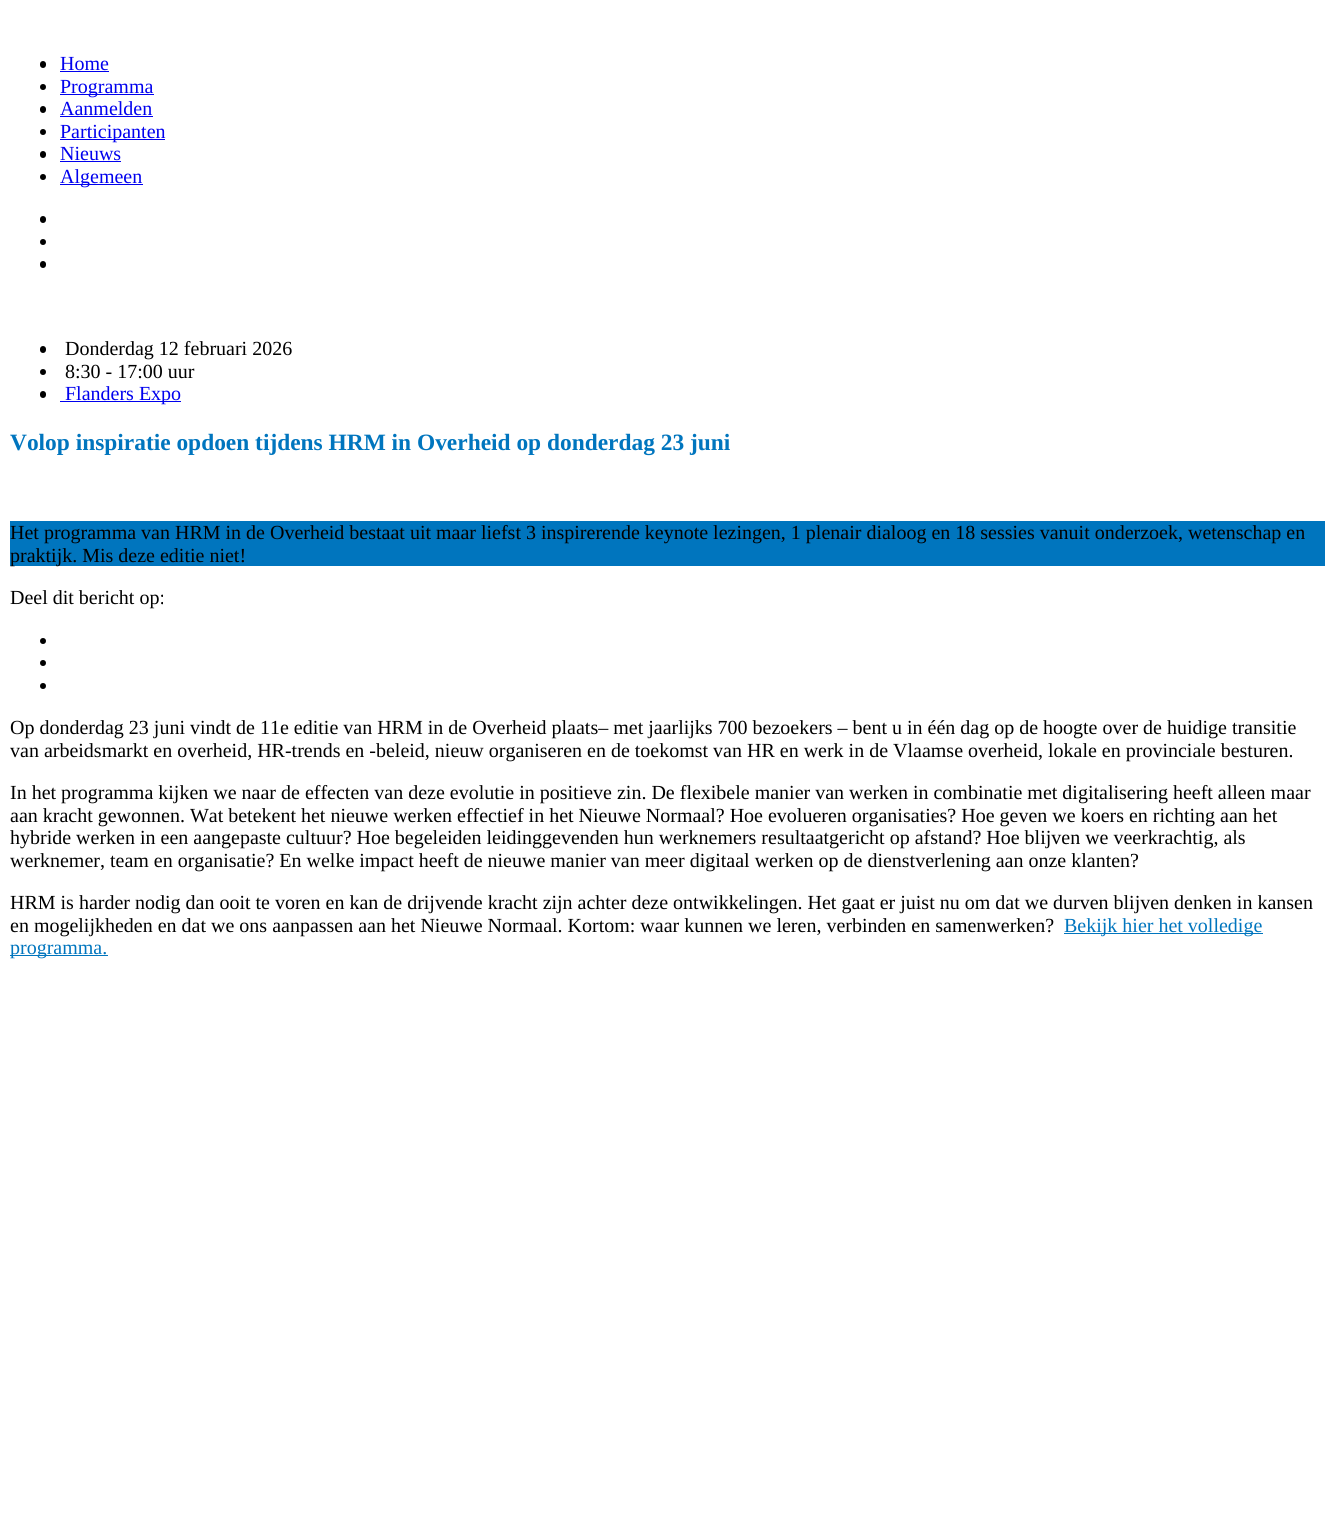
import math
import cairocffi as cairo

surface = cairo.ImageSurface(cairo.FORMAT_RGB24, 1334, 1530)
ctx = cairo.Context(surface)
options = cairo.FontOptions()
options.set_hint_metrics(cairo.HINT_METRICS_OFF)
options.set_hint_style(cairo.HINT_STYLE_NONE)
ctx.set_font_options(options)
ctx.set_miter_limit(4)


def rgb(r, g, b):
    ctx.set_source_rgb(r / 255, g / 255, b / 255)


def face(family, size, italic, bold):
    ctx.select_font_face(family, cairo.FONT_SLANT_ITALIC if italic else cairo.FONT_SLANT_NORMAL, cairo.FONT_WEIGHT_BOLD if bold else cairo.FONT_WEIGHT_NORMAL)
    ctx.set_font_size(size)


def label(x, y, s):
    ctx.move_to(x, y)
    ctx.show_text(s)


def rect(x, y, w, h):
    ctx.rectangle(x, y, w, h)
    ctx.fill()


def rrect(x, y, w, h, r):
    ctx.new_sub_path()
    for i, (u, v) in enumerate([(x + w - r, y + h - r), (x + r, y + h - r), (x + r, y + r), (x + w - r, y + r)]):
        ctx.arc(u, v, r, i * math.pi / 2, (i + 1) * math.pi / 2)
    ctx.close_path()


rgb(255, 255, 255)
ctx.paint()
rgb(0, 0, 0)
rrect(40, 61, 6, 7, 3)
ctx.fill()
face('Liberation Serif', 20, 0, 0)
rgb(0, 0, 238)
label(60, 70, 'Home')
rect(60, 71, 49, 1)
rgb(0, 0, 0)
ctx.new_path()
ctx.arc(43, 87, 3, 0, 2 * math.pi)
ctx.fill()
rgb(0, 0, 238)
rect(60, 94, 94, 1)
label(60, 93, 'Programma')
rgb(0, 0, 0)
rrect(40, 106, 6, 7, 3)
ctx.fill()
rgb(0, 0, 238)
label(60, 115, 'Aanmelden')
rect(60, 116, 93, 1)
rgb(0, 0, 0)
ctx.new_path()
ctx.arc(43, 132, 3, 0, 2 * math.pi)
ctx.fill()
rgb(0, 0, 238)
rect(60, 139, 105, 1)
label(60, 138, 'Participanten')
rgb(0, 0, 0)
rrect(40, 151, 6, 7, 3)
ctx.fill()
rgb(0, 0, 238)
label(60, 160, 'Nieuws')
rect(60, 161, 61, 1)
rgb(0, 0, 0)
ctx.new_path()
ctx.arc(43, 177, 3, 0, 2 * math.pi)
ctx.fill()
rgb(0, 0, 238)
rect(60, 184, 83, 1)
label(60, 183, 'Algemeen')
rgb(0, 0, 0)
rrect(40, 216, 6, 7, 3)
ctx.fill()
ctx.arc(43, 242, 3, 0, 2 * math.pi)
ctx.fill()
rrect(40, 261, 6, 7, 3)
ctx.fill()
rrect(40, 346, 6, 7, 3)
ctx.fill()
label(65, 355, 'Donderdag 12 februari 2026')
ctx.new_path()
ctx.arc(43, 372, 3, 0, 2 * math.pi)
ctx.fill()
label(65, 378, '8:30 - 17:00 uur')
rrect(40, 391, 6, 7, 3)
ctx.fill()
rgb(0, 0, 238)
rect(60, 401, 121, 1)
label(65, 400, 'Flanders Expo')
face('Liberation Serif', 23.4, 0, 1)
rgb(0, 117, 190)
label(10, 450, 'Volop inspiratie opdoen tijdens HRM in Overheid op donderdag 23 juni')
rect(10, 521, 1315, 45)
face('Liberation Serif', 20, 0, 0)
rgb(0, 0, 0)
label(10, 539, 'Het programma van HRM in de Overheid bestaat uit maar liefst 3 inspirerende keynote lezingen, 1 plenair dialoog en 18 sessies vanuit onderzoek, wetenschap en')
label(10, 562, 'praktijk. Mis deze editie niet!')
label(10, 604, 'Deel dit bericht op:')
ctx.new_path()
ctx.arc(43, 641, 3, 0, 2 * math.pi)
ctx.fill()
ctx.arc(43, 663, 3, 0, 2 * math.pi)
ctx.fill()
ctx.arc(43, 686, 3, 0, 2 * math.pi)
ctx.fill()
label(10, 734, 'Op donderdag 23 juni vindt de 11e editie van HRM in de Overheid plaats– met jaarlijks 700 bezoekers – bent u in één dag op de hoogte over de huidige transitie')
label(10, 757, 'van arbeidsmarkt en overheid, HR-trends en -beleid, nieuw organiseren en de toekomst van HR en werk in de Vlaamse overheid, lokale en provinciale besturen.')
label(10, 799, 'In het programma kijken we naar de effecten van deze evolutie in positieve zin. De flexibele manier van werken in combinatie met digitalisering heeft alleen maar')
label(10, 822, 'aan kracht gewonnen. Wat betekent het nieuwe werken effectief in het Nieuwe Normaal? Hoe evolueren organisaties? Hoe geven we koers en richting aan het')
label(10, 844, 'hybride werken in een aangepaste cultuur? Hoe begeleiden leidinggevenden hun werknemers resultaatgericht op afstand? Hoe blijven we veerkrachtig, als')
label(10, 867, 'werknemer, team en organisatie? En welke impact heeft de nieuwe manier van meer digitaal werken op de dienstverlening aan onze klanten?')
label(10, 909, 'HRM is harder nodig dan ooit te voren en kan de drijvende kracht zijn achter deze ontwikkelingen. Het gaat er juist nu om dat we durven blijven denken in kansen')
label(10, 932, 'en mogelijkheden en dat we ons aanpassen aan het Nieuwe Normaal. Kortom: waar kunnen we leren, verbinden en samenwerken?')
rgb(0, 117, 190)
rect(1064, 933, 199, 1)
label(1064, 932, 'Bekijk hier het volledige')
rect(10, 955, 98, 1)
label(10, 954, 'programma.')
surface.write_to_png('render.png')
